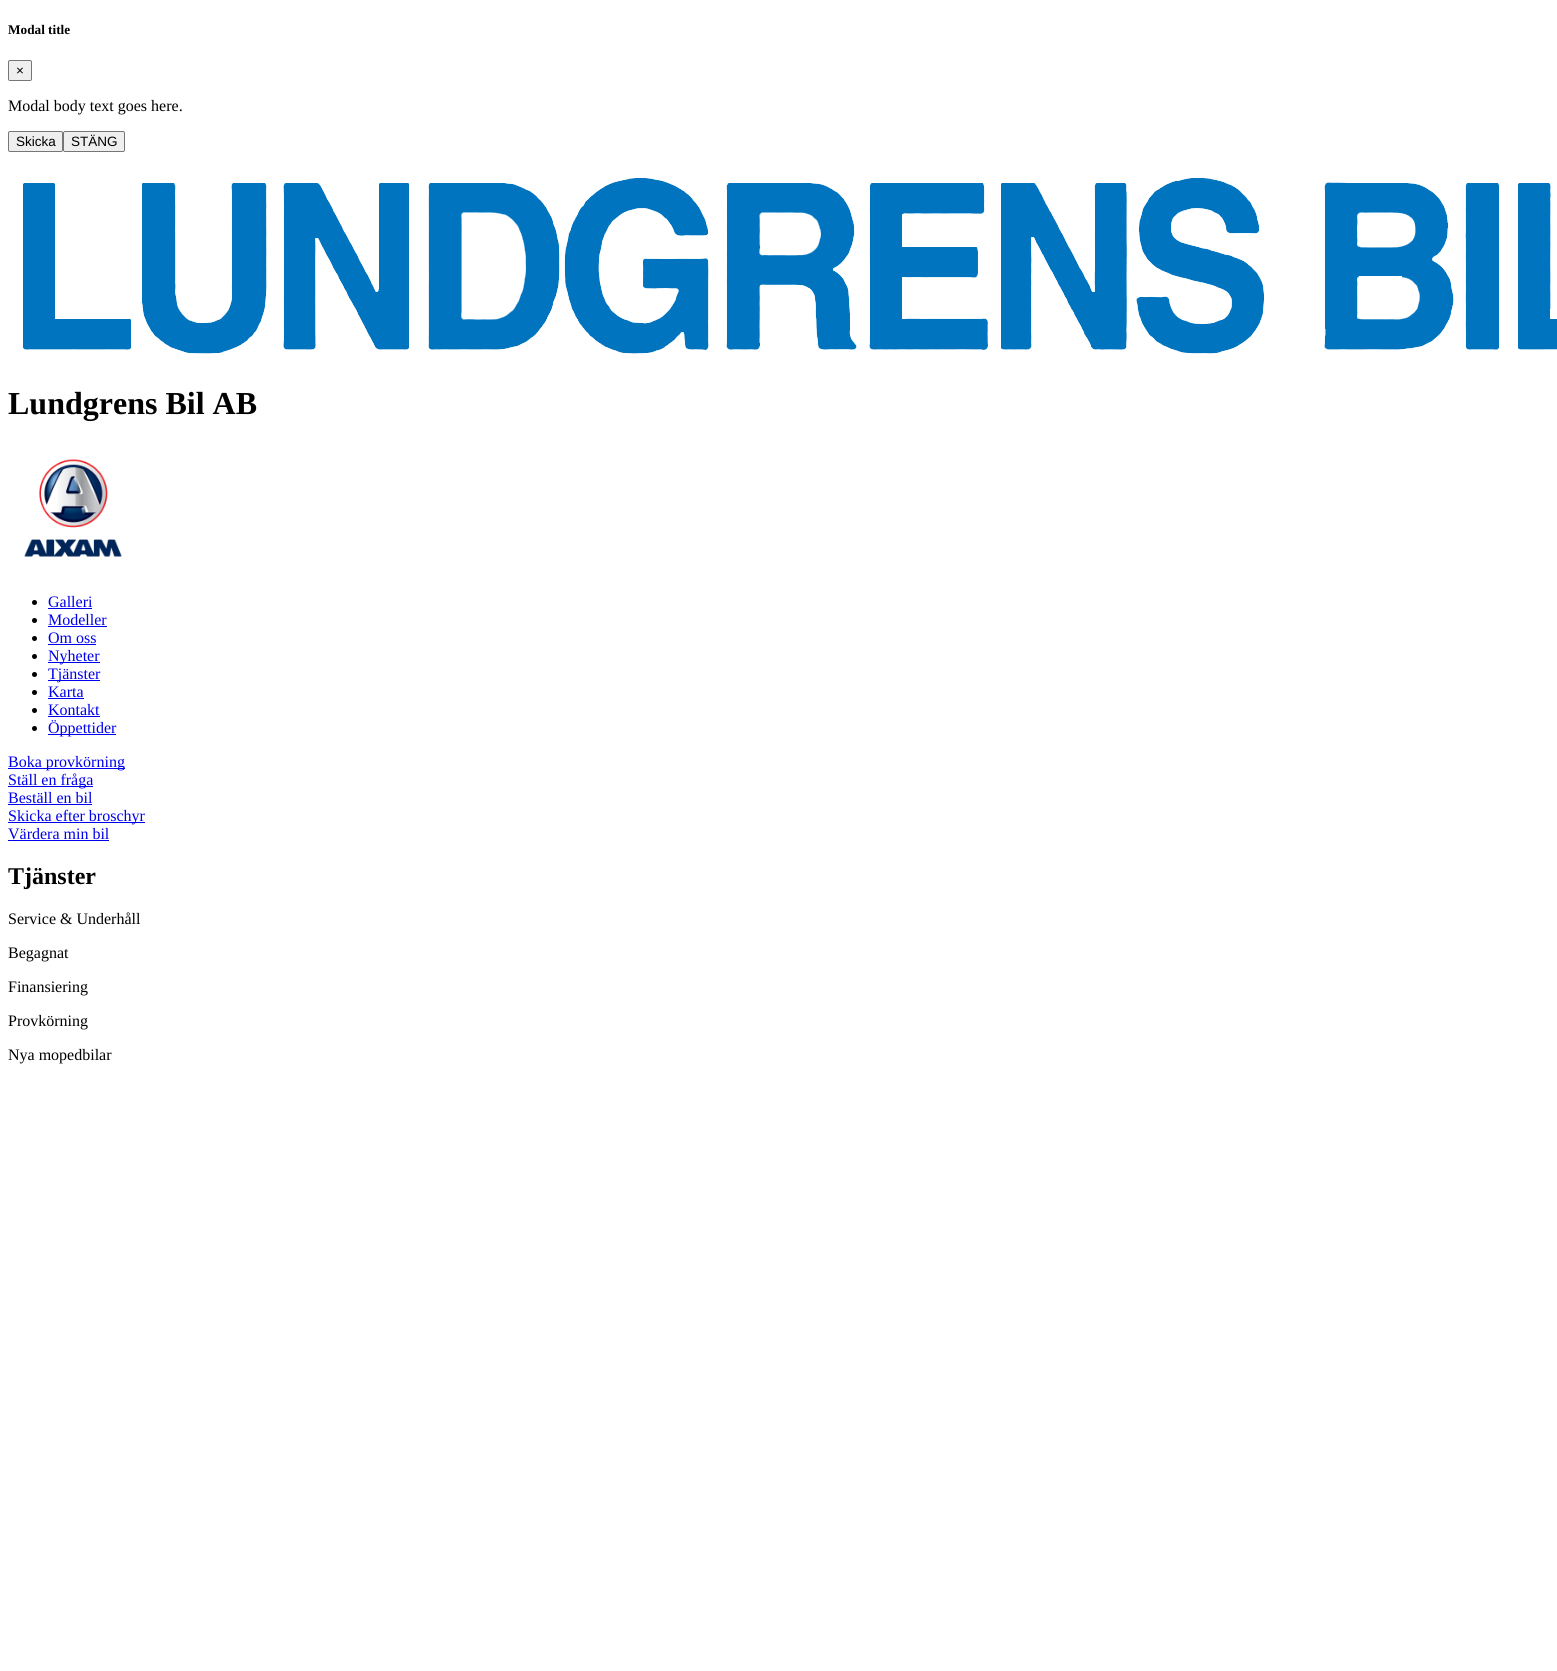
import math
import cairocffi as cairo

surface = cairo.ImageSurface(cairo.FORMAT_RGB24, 1557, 1671)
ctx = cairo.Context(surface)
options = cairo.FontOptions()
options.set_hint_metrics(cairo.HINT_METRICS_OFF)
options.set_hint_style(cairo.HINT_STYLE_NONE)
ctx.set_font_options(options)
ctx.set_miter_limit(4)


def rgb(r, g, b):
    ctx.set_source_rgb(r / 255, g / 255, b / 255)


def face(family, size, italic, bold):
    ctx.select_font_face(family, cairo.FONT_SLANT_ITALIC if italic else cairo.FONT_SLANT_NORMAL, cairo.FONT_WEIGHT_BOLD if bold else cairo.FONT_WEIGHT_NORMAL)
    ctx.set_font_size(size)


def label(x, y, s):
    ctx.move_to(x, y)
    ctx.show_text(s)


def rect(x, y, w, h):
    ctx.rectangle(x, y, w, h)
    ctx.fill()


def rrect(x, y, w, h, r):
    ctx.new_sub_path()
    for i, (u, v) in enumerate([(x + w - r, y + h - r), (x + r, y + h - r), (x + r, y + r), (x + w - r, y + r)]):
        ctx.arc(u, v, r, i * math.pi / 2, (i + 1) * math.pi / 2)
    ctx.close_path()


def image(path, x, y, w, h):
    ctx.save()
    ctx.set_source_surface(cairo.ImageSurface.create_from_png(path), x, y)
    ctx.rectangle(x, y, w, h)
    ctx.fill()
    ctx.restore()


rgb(255, 255, 255)
ctx.paint()
face('Liberation Serif', 13.25, 0, 1)
rgb(0, 0, 0)
label(8, 34, 'Modal title')
rgb(239, 239, 239)
rrect(8.5, 60.5, 23, 20, 1.5)
ctx.fill_preserve()
rgb(118, 118, 118)
ctx.set_line_width(1)
ctx.stroke()
face('Liberation Sans', 13.5, 0, 0)
rgb(0, 0, 0)
label(16, 75, '×')
face('Liberation Serif', 16, 0, 0)
label(8, 111, 'Modal body text goes here.')
rgb(239, 239, 239)
rrect(8.5, 131.5, 54, 20, 1.5)
ctx.fill_preserve()
rgb(118, 118, 118)
ctx.stroke()
face('Liberation Sans', 13.5, 0, 0)
rgb(0, 0, 0)
label(16, 146, 'Skicka')
rgb(239, 239, 239)
rrect(63.5, 131.5, 61, 20, 1.5)
ctx.fill_preserve()
rgb(118, 118, 118)
ctx.stroke()
rgb(0, 0, 0)
label(71, 146, 'STÄNG')
image('image0.png', 23, 177, 1534, 177)
face('Liberation Serif', 32, 0, 1)
label(8, 414, 'Lundgrens Bil AB')
image('image1.png', 24, 459, 98, 98)
ctx.arc(34.5, 602.5, 2.5, 0, 2 * math.pi)
ctx.fill()
face('Liberation Serif', 16, 0, 0)
rgb(0, 0, 238)
label(48, 607, 'Galleri')
rect(48, 608, 44, 1)
rgb(0, 0, 0)
ctx.new_path()
ctx.arc(34.5, 620.5, 2.5, 0, 2 * math.pi)
ctx.fill()
rgb(0, 0, 238)
label(48, 625, 'Modeller')
rect(48, 626, 59, 1)
rgb(0, 0, 0)
ctx.new_path()
ctx.arc(34.5, 638.5, 2.5, 0, 2 * math.pi)
ctx.fill()
rgb(0, 0, 238)
label(48, 643, 'Om oss')
rect(48, 644, 48, 1)
rgb(0, 0, 0)
ctx.new_path()
ctx.arc(34.5, 656.5, 2.5, 0, 2 * math.pi)
ctx.fill()
rgb(0, 0, 238)
rect(48, 662, 52, 1)
label(48, 661, 'Nyheter')
rgb(0, 0, 0)
ctx.new_path()
ctx.arc(34.5, 674.5, 2.5, 0, 2 * math.pi)
ctx.fill()
rgb(0, 0, 238)
rect(48, 680, 52, 1)
label(48, 679, 'Tjänster')
rgb(0, 0, 0)
ctx.new_path()
ctx.arc(34.5, 692.5, 2.5, 0, 2 * math.pi)
ctx.fill()
rgb(0, 0, 238)
label(48, 697, 'Karta')
rect(48, 698, 36, 1)
rgb(0, 0, 0)
ctx.new_path()
ctx.arc(34.5, 710.5, 2.5, 0, 2 * math.pi)
ctx.fill()
rgb(0, 0, 238)
label(48, 715, 'Kontakt')
rect(48, 716, 52, 1)
rgb(0, 0, 0)
ctx.new_path()
ctx.arc(34.5, 728.5, 2.5, 0, 2 * math.pi)
ctx.fill()
rgb(0, 0, 238)
rect(48, 734, 68, 1)
label(48, 733, 'Öppettider')
rect(8, 768, 117, 1)
label(8, 767, 'Boka provkörning')
rect(8, 786, 85, 1)
label(8, 785, 'Ställ en fråga')
label(8, 803, 'Beställ en bil')
rect(8, 804, 84, 1)
rect(8, 822, 137, 1)
label(8, 821, 'Skicka efter broschyr')
label(8, 839, 'Värdera min bil')
rect(8, 840, 101, 1)
face('Liberation Serif', 24, 0, 1)
rgb(0, 0, 0)
label(8, 884, 'Tjänster')
face('Liberation Serif', 16, 0, 0)
label(8, 924, 'Service & Underhåll')
label(8, 958, 'Begagnat')
label(8, 992, 'Finansiering')
label(8, 1026, 'Provkörning')
label(8, 1060, 'Nya mopedbilar')
surface.write_to_png('render.png')
